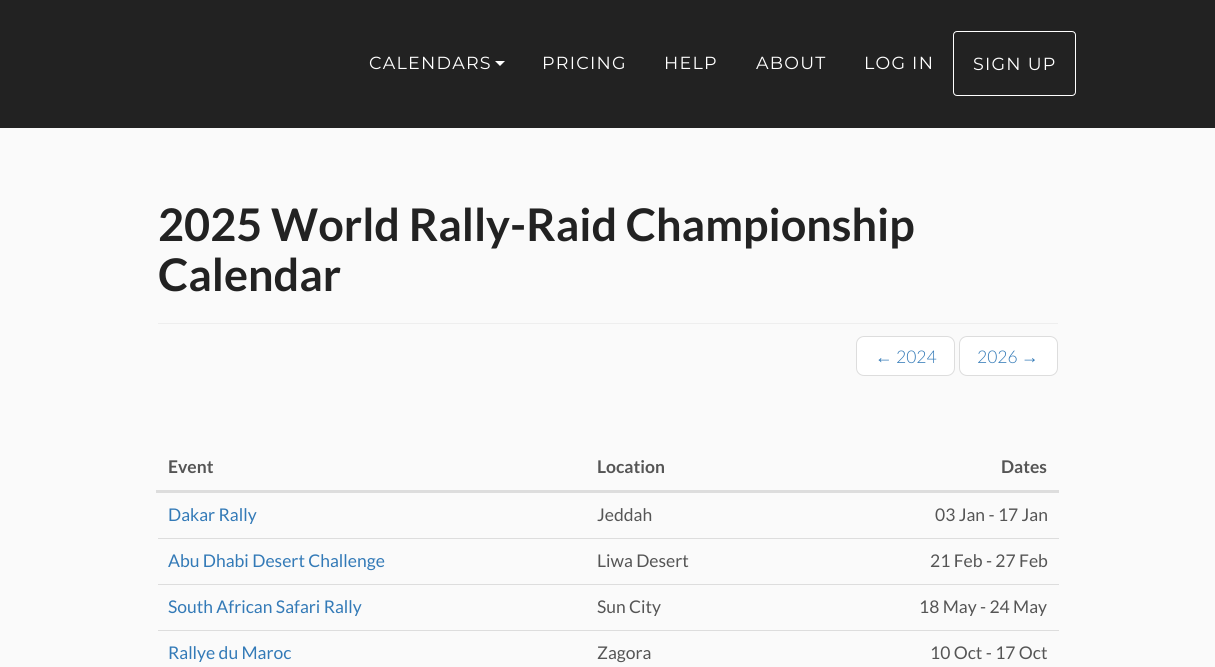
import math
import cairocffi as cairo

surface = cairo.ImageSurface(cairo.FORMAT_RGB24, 1215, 667)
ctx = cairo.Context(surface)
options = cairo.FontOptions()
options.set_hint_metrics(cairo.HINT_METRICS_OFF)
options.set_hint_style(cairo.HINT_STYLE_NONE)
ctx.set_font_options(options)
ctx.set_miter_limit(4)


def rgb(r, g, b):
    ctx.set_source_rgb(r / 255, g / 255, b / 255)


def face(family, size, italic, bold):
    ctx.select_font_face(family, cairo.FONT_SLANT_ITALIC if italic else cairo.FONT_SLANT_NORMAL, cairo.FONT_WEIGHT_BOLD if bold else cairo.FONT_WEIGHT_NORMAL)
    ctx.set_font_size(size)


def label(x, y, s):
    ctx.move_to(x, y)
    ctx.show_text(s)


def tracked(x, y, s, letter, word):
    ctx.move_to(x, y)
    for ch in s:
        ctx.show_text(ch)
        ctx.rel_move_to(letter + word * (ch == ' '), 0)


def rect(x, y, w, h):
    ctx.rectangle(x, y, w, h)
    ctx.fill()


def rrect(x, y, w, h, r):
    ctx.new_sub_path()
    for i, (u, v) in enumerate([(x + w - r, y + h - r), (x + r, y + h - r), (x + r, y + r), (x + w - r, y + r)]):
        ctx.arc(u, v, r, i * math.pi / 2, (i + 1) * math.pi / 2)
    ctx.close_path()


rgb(250, 250, 250)
ctx.paint()
rgb(34, 34, 34)
rect(0, 0, 1215, 128)
face('Montserrat', 17.5, 0, 0)
rgb(255, 255, 255)
tracked(369, 69, 'CALENDARS', 1.25, 0)
ctx.new_path()
ctx.move_to(495, 61)
ctx.line_to(505, 61)
ctx.line_to(500, 66)
ctx.close_path()
ctx.fill()
tracked(542, 69, 'PRICING', 1.25, 0)
tracked(664, 69, 'HELP', 1.25, 0)
tracked(756, 69, 'ABOUT', 1.25, 0)
tracked(864, 69, 'LOG IN', 1.25, 0)
rrect(953.5, 31.5, 122, 64, 3.5)
ctx.set_line_width(1)
ctx.stroke()
tracked(973, 70, 'SIGN UP', 1.25, 0)
rgb(238, 238, 238)
rect(158, 323, 900, 1)
face('Lato', 45, 0, 1)
rgb(34, 34, 34)
label(158, 241, '2025 World Rally-Raid Championship')
label(158, 291, 'Calendar')
rgb(255, 255, 255)
rrect(856.5, 336.5, 98, 39, 7.5)
ctx.fill_preserve()
rgb(221, 221, 221)
ctx.stroke()
face('Liberation Sans', 17.5, 0, 0)
rgb(51, 122, 183)
label(875, 363, '←')
face('Lato Light', 17.5, 0, 0)
label(896, 363, '2024')
rgb(255, 255, 255)
rrect(959.5, 336.5, 98, 39, 7.5)
ctx.fill_preserve()
rgb(221, 221, 221)
ctx.stroke()
rgb(51, 122, 183)
label(977, 363, '2026')
face('Liberation Sans', 17.5, 0, 0)
label(1021, 363, '→')
face('Lato', 17.5, 0, 1)
rgb(85, 85, 85)
label(168, 473, 'Event')
label(597, 473, 'Location')
rgb(221, 221, 221)
rect(156, 490, 903, 3)
rgb(85, 85, 85)
label(1001, 473, 'Dates')
face('Lato', 17.5, 0, 0)
rgb(51, 122, 183)
label(168, 521, 'Dakar Rally')
rgb(85, 85, 85)
label(597, 521, 'Jeddah')
label(935, 521, '03 Jan - 17 Jan')
rgb(51, 122, 183)
label(168, 567, 'Abu Dhabi Desert Challenge')
rgb(85, 85, 85)
label(597, 567, 'Liwa Desert')
rgb(221, 221, 221)
rect(158, 538, 901, 1)
rgb(85, 85, 85)
label(930, 567, '21 Feb - 27 Feb')
rgb(51, 122, 183)
label(168, 613, 'South African Safari Rally')
rgb(85, 85, 85)
label(597, 613, 'Sun City')
rgb(221, 221, 221)
rect(158, 584, 901, 1)
rgb(85, 85, 85)
label(919, 613, '18 May - 24 May')
rgb(51, 122, 183)
label(168, 659, 'Rallye du Maroc')
rgb(85, 85, 85)
label(597, 659, 'Zagora')
rgb(221, 221, 221)
rect(158, 630, 901, 1)
rgb(85, 85, 85)
label(930, 659, '10 Oct - 17 Oct')
surface.write_to_png('render.png')
